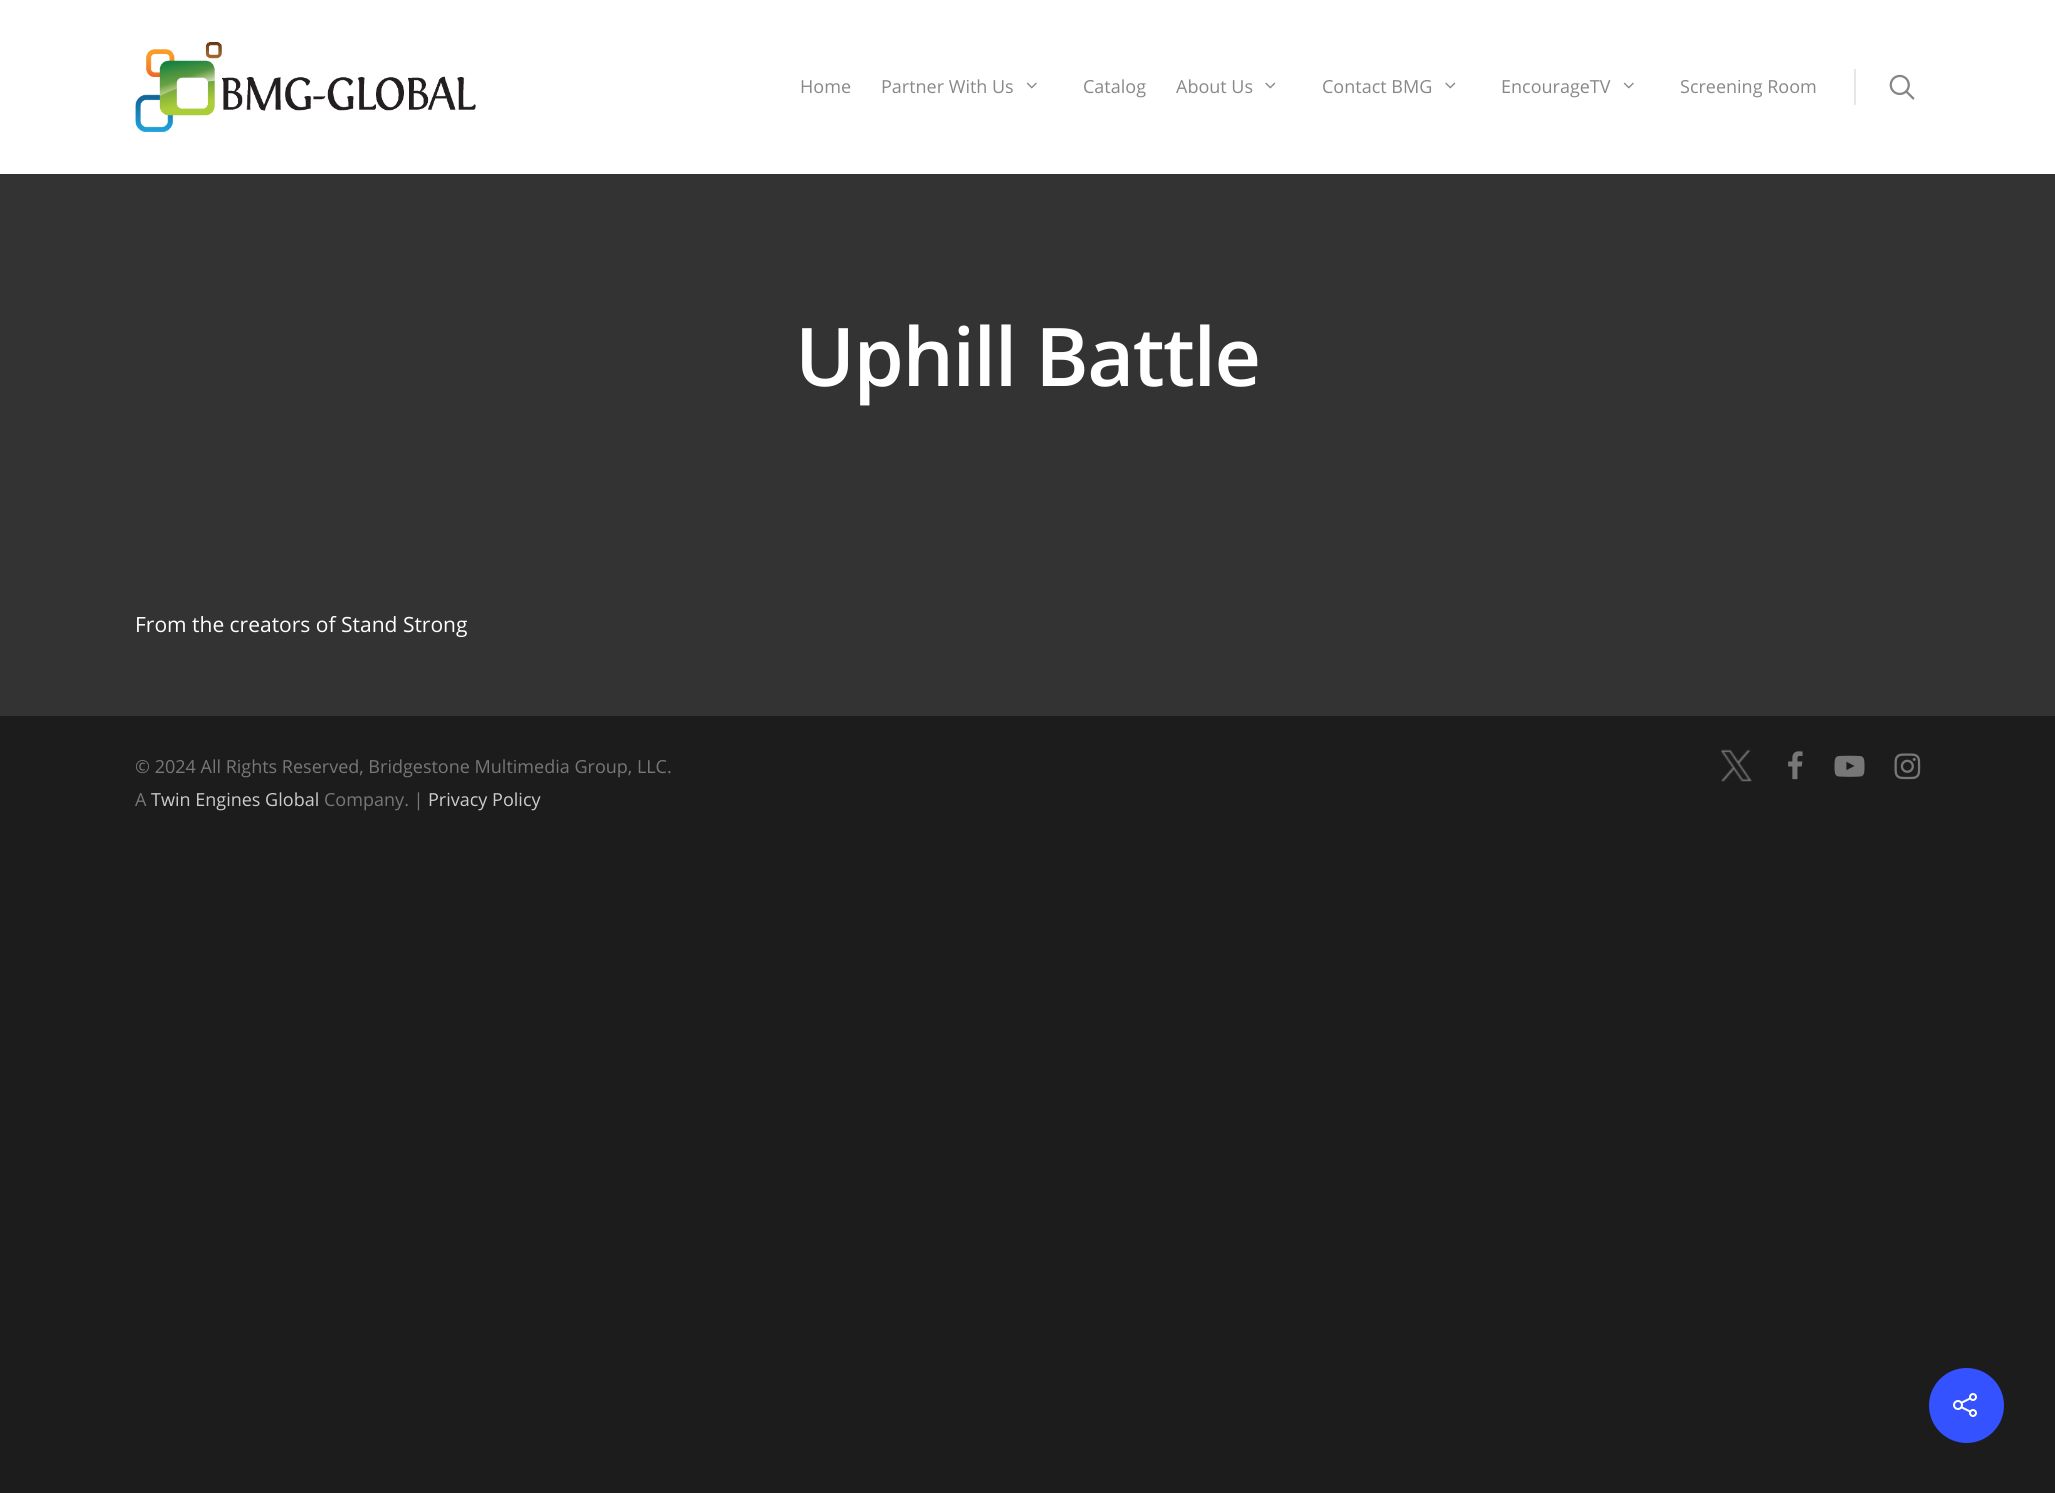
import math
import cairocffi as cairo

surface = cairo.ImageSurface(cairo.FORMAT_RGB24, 2055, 1493)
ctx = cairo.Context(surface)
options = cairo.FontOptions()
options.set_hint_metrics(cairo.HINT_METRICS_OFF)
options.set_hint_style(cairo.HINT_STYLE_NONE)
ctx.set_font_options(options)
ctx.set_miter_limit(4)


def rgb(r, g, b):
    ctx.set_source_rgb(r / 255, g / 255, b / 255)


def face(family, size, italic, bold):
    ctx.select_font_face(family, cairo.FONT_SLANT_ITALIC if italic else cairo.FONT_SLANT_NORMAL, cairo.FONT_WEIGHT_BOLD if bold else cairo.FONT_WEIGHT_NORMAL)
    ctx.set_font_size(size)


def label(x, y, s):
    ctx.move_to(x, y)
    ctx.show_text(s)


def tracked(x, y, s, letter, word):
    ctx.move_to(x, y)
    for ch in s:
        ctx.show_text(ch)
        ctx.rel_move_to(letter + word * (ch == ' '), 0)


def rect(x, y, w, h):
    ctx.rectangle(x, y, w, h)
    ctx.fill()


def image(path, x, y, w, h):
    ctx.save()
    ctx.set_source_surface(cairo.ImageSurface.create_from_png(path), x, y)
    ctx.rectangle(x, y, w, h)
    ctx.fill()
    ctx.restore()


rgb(28, 28, 28)
ctx.paint()
rgb(255, 255, 255)
rect(0, 0, 2055, 174)
image('image0.png', 135, 42, 341, 90)
face('Open Sans', 18, 0, 0)
rgb(136, 136, 136)
label(800, 93, 'Home')
label(881, 93, 'Partner With Us')
image('image1.png', 1026, 82, 11, 7)
label(1083, 93, 'Catalog')
label(1176, 93, 'About Us')
image('image2.png', 1265, 82, 11, 7)
label(1322, 93, 'Contact BMG')
image('image2.png', 1445, 82, 11, 7)
label(1501, 93, 'EncourageTV')
image('image1.png', 1623, 82, 11, 7)
label(1680, 93, 'Screening Room')
rgb(231, 231, 231)
rect(1854, 69, 2, 36)
image('image3.png', 1889, 74, 26, 26)
rgb(51, 51, 51)
rect(0, 174, 2055, 542)
face('Open Sans SemiBold', 81, 0, 0)
rgb(255, 255, 255)
tracked(795, 386, 'Uphill Battle', -1.5, 0)
face('Open Sans', 21, 0, 0)
label(135, 632, 'From the creators of Stand Strong')
face('Open Sans', 18, 0, 0)
rgb(119, 119, 119)
label(135, 773, '© 2024 All Rights Reserved, Bridgestone Multimedia Group, LLC.')
label(135, 806, 'A')
rgb(204, 204, 204)
label(151, 806, 'Twin Engines Global')
rgb(119, 119, 119)
label(324, 806, 'Company. |')
rgb(204, 204, 204)
label(428, 806, 'Privacy Policy')
image('image4.png', 1721, 749, 31, 33)
image('image5.png', 1788, 751, 15, 29)
image('image6.png', 1834, 755, 31, 22)
image('image7.png', 1894, 753, 27, 27)
rgb(52, 82, 255)
ctx.arc(1966.5, 1405.5, 37.5, 0, 2 * math.pi)
ctx.fill()
image('image8.png', 1953, 1393, 24, 24)
surface.write_to_png('render.png')
